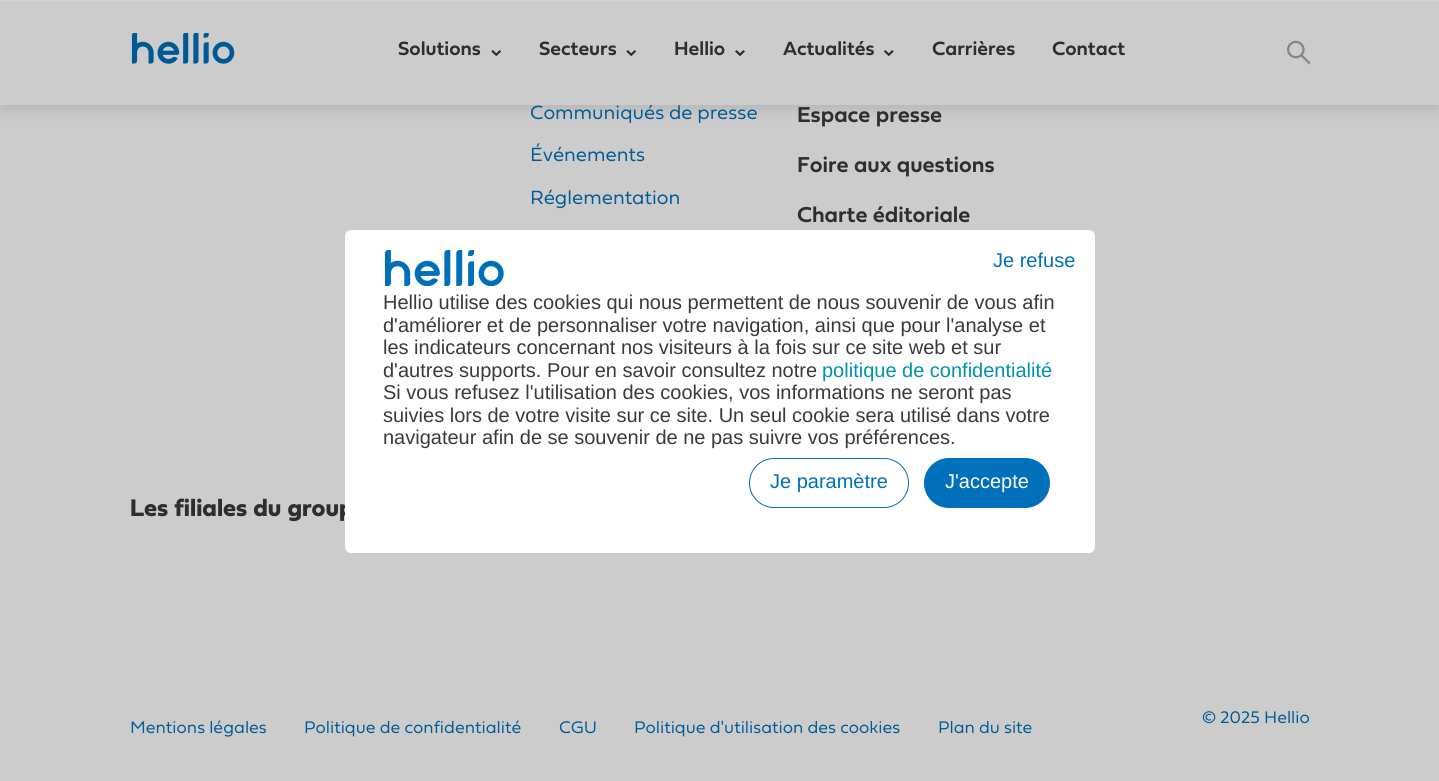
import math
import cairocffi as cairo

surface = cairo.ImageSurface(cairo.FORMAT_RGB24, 1439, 781)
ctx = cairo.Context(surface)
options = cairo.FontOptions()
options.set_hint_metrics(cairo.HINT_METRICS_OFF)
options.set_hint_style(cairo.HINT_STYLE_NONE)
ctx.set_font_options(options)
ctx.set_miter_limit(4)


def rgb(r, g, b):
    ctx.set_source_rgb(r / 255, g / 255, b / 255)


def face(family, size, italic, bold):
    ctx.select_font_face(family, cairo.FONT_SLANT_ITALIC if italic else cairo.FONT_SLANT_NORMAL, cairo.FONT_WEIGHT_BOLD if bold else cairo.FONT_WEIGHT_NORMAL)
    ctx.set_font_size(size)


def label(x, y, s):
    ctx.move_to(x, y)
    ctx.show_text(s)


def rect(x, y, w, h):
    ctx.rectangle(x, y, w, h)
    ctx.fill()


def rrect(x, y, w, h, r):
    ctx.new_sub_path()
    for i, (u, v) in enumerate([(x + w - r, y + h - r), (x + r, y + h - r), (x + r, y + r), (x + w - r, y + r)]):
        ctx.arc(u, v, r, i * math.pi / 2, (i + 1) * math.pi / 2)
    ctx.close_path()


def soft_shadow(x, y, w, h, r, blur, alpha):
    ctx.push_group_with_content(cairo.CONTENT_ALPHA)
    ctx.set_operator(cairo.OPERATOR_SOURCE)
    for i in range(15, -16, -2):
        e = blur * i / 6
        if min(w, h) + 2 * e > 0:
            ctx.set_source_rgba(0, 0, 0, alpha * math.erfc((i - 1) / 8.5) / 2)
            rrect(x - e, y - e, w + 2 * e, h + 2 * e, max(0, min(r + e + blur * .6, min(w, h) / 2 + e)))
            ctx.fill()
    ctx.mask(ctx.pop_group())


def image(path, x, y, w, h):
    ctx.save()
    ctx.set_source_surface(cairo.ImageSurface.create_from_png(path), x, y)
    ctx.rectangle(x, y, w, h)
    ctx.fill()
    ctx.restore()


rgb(204, 204, 204)
ctx.paint()
rgb(0, 0, 0)
soft_shadow(0, 6, 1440, 105, 0, 6, 0.1)
face('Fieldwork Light', 20, 0, 0)
rgb(0, 90, 149)
label(530, 119, 'Communiqués de presse')
rgb(204, 204, 204)
rect(0, 1, 1439, 104)
image('image0.png', 131, 33, 104, 31)
face('Fieldwork SemiBold', 20, 0, 0)
rgb(46, 46, 46)
label(398, 55, 'Solutions')
image('image1.png', 491, 50, 10, 6)
label(539, 55, 'Secteurs')
image('image1.png', 626, 50, 10, 6)
label(674, 55, 'Hellio')
image('image2.png', 735, 50, 10, 6)
label(783, 55, 'Actualités')
image('image3.png', 884, 50, 10, 6)
label(932, 55, 'Carrières')
label(1052, 55, 'Contact')
image('image4.png', 1287, 40, 24, 25)
face('Fieldwork Light', 20, 0, 0)
rgb(0, 90, 149)
label(530, 161, 'Événements')
label(530, 204, 'Réglementation')
face('Fieldwork SemiBold', 22.5, 0, 0)
rgb(46, 46, 46)
label(797, 122, 'Espace presse')
label(797, 172, 'Foire aux questions')
label(797, 222, 'Charte éditoriale')
face('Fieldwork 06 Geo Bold', 25, 0, 1)
label(130, 516, 'Les filiales du group')
face('Fieldwork Light', 17.5, 0, 0)
rgb(0, 90, 149)
label(1202, 723, '© 2025 Hellio')
label(130, 733, 'Mentions légales')
label(304, 733, 'Politique de confidentialité')
label(559, 733, 'CGU')
label(634, 733, 'Politique d\'utilisation des cookies')
label(938, 733, 'Plan du site')
rgb(203, 214, 226)
rect(0, 0, 1439, 1)
rgb(255, 255, 255)
rrect(345, 230, 750, 323, 6)
ctx.fill()
rrect(749.5, 458.5, 159, 49, 24.5)
rgb(0, 112, 187)
ctx.set_line_width(1)
ctx.stroke()
face('Liberation Sans', 20, 0, 0)
label(770, 488, 'Je paramètre')
image('image5.png', 385, 250, 119, 36)
label(993, 267, 'Je refuse')
rrect(924.5, 458.5, 125, 49, 24.5)
ctx.fill_preserve()
ctx.stroke()
rgb(255, 255, 255)
label(945, 488, 'J\'accepte')
rgb(58, 58, 58)
label(383, 309, 'Hellio utilise des cookies qui nous permettent de nous souvenir de vous afin')
label(383, 332, 'd\'améliorer et de personnaliser votre navigation, ainsi que pour l\'analyse et')
label(383, 354, 'les indicateurs concernant nos visiteurs à la fois sur ce site web et sur')
label(383, 377, 'd\'autres supports. Pour en savoir consultez notre')
rgb(0, 145, 174)
label(822, 377, 'politique de confidentialité')
rgb(58, 58, 58)
label(383, 399, 'Si vous refusez l\'utilisation des cookies, vos informations ne seront pas')
label(383, 422, 'suivies lors de votre visite sur ce site. Un seul cookie sera utilisé dans votre')
label(383, 444, 'navigateur afin de se souvenir de ne pas suivre vos préférences.')
surface.write_to_png('render.png')
